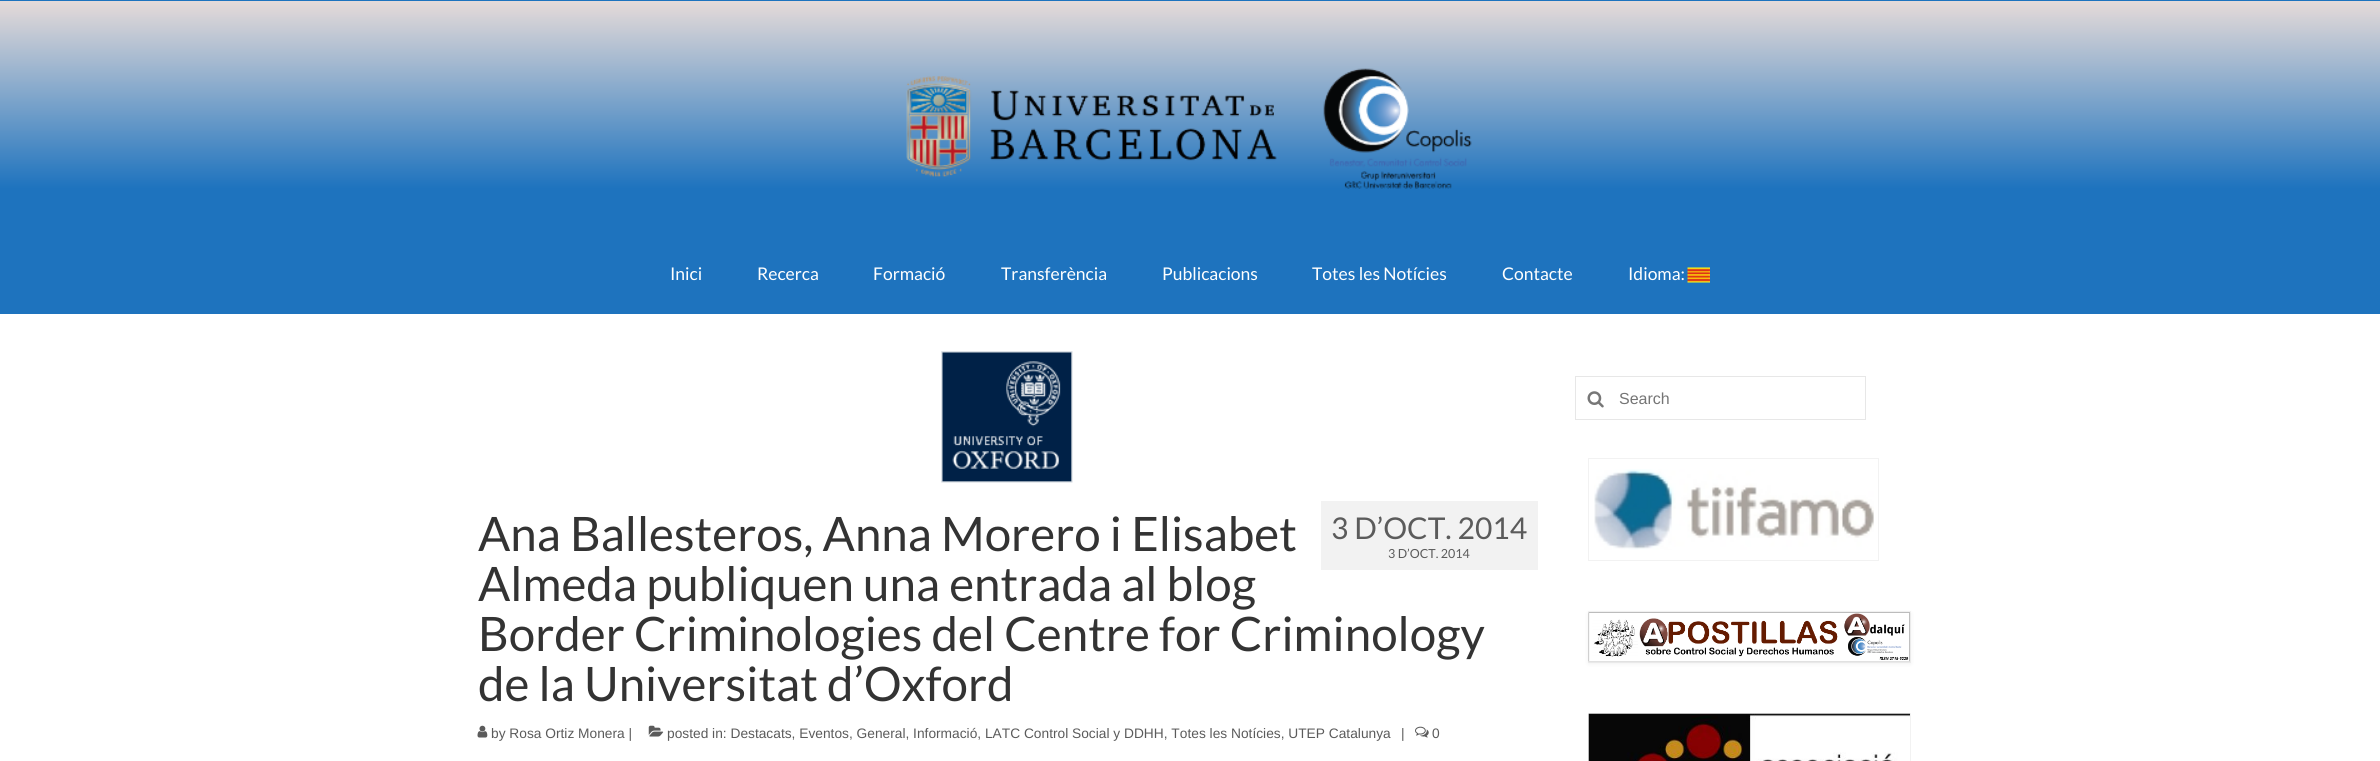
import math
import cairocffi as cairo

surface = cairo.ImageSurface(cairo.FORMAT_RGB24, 2380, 761)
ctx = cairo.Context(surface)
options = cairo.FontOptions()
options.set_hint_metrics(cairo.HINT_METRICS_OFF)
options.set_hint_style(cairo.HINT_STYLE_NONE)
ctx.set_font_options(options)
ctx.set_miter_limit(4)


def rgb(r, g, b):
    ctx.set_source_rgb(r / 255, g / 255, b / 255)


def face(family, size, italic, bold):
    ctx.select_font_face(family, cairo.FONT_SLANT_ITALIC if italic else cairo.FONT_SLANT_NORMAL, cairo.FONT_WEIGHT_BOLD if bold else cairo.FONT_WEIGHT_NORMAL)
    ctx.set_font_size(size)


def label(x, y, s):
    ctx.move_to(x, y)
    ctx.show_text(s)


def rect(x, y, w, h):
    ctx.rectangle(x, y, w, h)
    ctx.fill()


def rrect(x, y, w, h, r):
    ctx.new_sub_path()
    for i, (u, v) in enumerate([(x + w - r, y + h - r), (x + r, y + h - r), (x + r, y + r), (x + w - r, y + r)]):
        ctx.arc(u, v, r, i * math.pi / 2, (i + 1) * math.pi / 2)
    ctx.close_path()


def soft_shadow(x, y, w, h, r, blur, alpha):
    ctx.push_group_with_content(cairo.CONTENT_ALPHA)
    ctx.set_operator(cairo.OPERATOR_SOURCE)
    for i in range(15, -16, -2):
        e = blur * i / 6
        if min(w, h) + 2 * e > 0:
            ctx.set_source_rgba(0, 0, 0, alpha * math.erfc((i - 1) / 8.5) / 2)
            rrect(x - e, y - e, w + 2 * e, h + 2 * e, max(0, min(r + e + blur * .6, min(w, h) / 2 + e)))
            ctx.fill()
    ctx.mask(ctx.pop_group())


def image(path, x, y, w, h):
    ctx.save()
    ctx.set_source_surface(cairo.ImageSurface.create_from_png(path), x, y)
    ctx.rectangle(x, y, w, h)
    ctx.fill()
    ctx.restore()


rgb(255, 255, 255)
ctx.paint()
gradient = cairo.LinearGradient(1190, 0, 1190, 314)
gradient.add_color_stop_rgba(0, 0.902, 0.859, 0.851, 1)
gradient.add_color_stop_rgba(0.6, 0.118, 0.451, 0.745, 1)
ctx.set_source(gradient)
rect(0, 1, 2380, 313)
rgb(30, 115, 190)
rect(0, 0, 2380, 1)
image('image0.png', 906, 68, 566, 121)
face('Lato', 17.5, 0, 0)
rgb(255, 255, 255)
label(670, 280, 'Inici')
label(757, 280, 'Recerca')
label(873, 280, 'Formació')
label(1001, 280, 'Transferència')
label(1162, 280, 'Publicacions')
label(1312, 280, 'Totes les Notícies')
label(1502, 280, 'Contacte')
label(1628, 280, 'Idioma:')
image('image1.png', 1687, 267, 23, 16)
ctx.rectangle(1575.5, 376.5, 290, 43)
rgb(231, 231, 231)
ctx.set_line_width(1)
ctx.stroke()
image('image2.png', 1587, 391, 17, 17)
face('Liberation Sans', 16, 0, 0)
rgb(117, 117, 117)
label(1619, 404, 'Search')
ctx.rectangle(1588.5, 458.5, 290, 102)
rgb(242, 242, 242)
ctx.stroke()
image('image3.png', 1594, 469, 280, 81)
rgb(0, 0, 0)
soft_shadow(1588, 613, 323, 51, 0, 2, 0.06)
ctx.rectangle(1588.5, 611.5, 322, 51)
ctx.set_source_rgba(0, 0, 0, 0.05)
ctx.stroke()
image('image4.png', 1588, 612, 322, 50)
ctx.rectangle(1588.5, 713.5, 322, 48)
rgb(242, 242, 242)
ctx.stroke()
image('image5.png', 1588, 713, 322, 48)
image('image6.png', 941, 351, 132, 132)
face('Lato', 47.5, 0, 0)
rgb(51, 51, 51)
label(478, 551, 'Ana Ballesteros, Anna Morero i Elisabet')
label(478, 601, 'Almeda publiquen una entrada al blog')
label(478, 651, 'Border Criminologies del Centre for Criminology')
label(478, 701, 'de la Universitat d’Oxford')
image('image7.png', 477, 725, 11, 13)
face('Liberation Sans', 13.75, 0, 0)
rgb(91, 91, 91)
label(491, 738, 'by Rosa Ortiz Monera |')
image('image8.png', 648, 725, 16, 12)
label(667, 738, 'posted in: Destacats, Eventos, General, Informació, LATC Control Social y DDHH, Totes les Notícies, UTEP Catalunya')
label(1401, 738, '|')
image('image9.png', 1415, 726, 14, 12)
label(1432, 738, '0')
rgb(242, 242, 242)
rect(1321, 501, 217, 69)
face('Lato', 30, 0, 0)
rgb(91, 91, 91)
label(1331, 539, '3 D’OCT. 2014')
face('Lato', 12.5, 0, 0)
label(1388, 558, '3 D’OCT. 2014')
surface.write_to_png('render.png')
